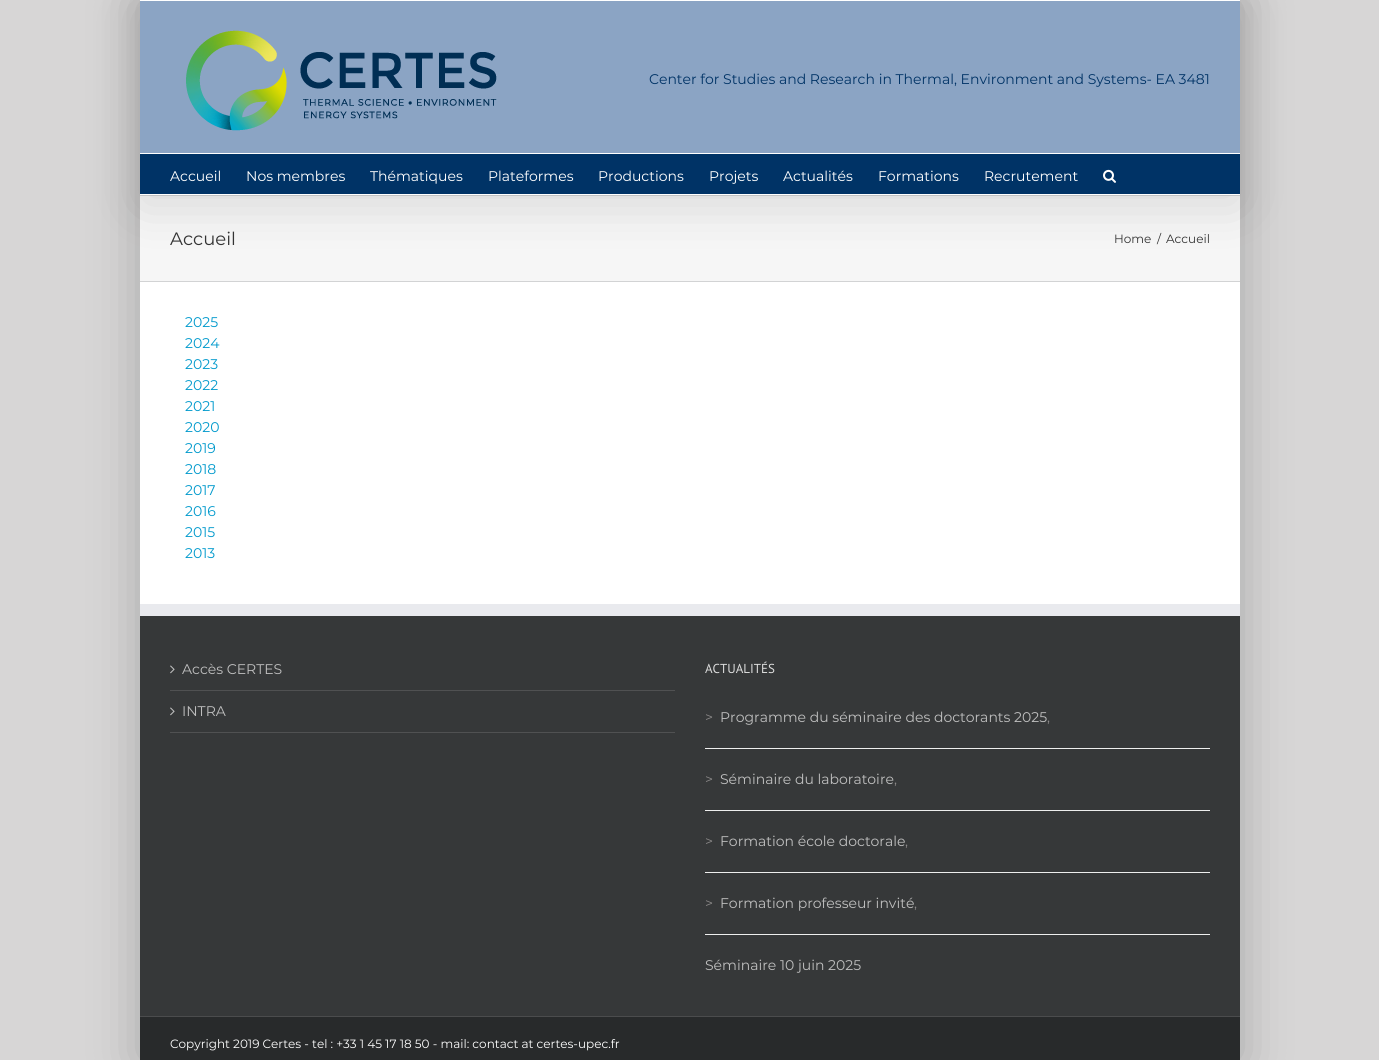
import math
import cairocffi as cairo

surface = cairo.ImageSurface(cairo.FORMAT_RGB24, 1379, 1060)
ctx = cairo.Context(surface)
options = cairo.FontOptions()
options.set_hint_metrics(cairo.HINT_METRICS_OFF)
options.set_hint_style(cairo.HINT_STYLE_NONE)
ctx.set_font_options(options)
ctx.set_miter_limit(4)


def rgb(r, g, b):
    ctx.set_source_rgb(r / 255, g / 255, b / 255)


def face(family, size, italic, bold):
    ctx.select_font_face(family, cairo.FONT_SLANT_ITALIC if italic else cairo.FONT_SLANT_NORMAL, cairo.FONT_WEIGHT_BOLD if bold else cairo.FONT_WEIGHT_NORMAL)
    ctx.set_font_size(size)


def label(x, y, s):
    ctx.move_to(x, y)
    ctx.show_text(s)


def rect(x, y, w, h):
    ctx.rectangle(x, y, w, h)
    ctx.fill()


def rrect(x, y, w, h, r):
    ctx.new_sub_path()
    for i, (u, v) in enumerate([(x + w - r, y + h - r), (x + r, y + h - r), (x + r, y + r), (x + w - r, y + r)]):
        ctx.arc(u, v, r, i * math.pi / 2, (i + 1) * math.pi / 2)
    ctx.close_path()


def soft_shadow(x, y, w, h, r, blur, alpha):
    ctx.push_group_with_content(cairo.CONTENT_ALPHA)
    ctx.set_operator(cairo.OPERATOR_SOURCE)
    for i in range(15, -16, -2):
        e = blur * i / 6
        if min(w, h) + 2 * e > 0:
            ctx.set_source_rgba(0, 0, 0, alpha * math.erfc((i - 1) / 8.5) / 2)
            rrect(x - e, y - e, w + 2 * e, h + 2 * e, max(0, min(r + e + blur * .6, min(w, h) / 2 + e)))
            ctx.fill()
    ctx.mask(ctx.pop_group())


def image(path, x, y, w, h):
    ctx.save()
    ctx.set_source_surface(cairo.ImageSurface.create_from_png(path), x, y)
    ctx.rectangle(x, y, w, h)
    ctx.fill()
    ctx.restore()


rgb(215, 214, 214)
ctx.paint()
rgb(246, 246, 246)
rect(140, 196, 1100, 85)
rgb(210, 211, 212)
rect(140, 195, 1100, 1)
rgb(0, 0, 0)
soft_shadow(142, 12, 1096, 191, 0, 25, 0.14)
rgb(255, 255, 255)
rect(140, 0, 1100, 1)
rgb(139, 164, 196)
rect(140, 1, 1100, 152)
rgb(255, 255, 255)
rect(140, 153, 1100, 1)
image('image0.png', 186, 30, 311, 101)
rgb(0, 51, 102)
rect(140, 154, 1100, 40)
rgb(255, 255, 255)
rect(140, 194, 1100, 1)
image('image1.png', 1103, 169, 13, 14)
rgb(210, 211, 212)
rect(140, 281, 1100, 1)
rgb(255, 255, 255)
rect(140, 282, 1100, 322)
rgb(54, 56, 57)
rect(140, 616, 1100, 400)
rgb(233, 234, 238)
rect(140, 604, 1100, 12)
rgb(80, 81, 82)
rect(170, 690, 505, 1)
image('image2.png', 170, 665, 5, 9)
rect(170, 732, 505, 1)
image('image2.png', 170, 707, 5, 9)
rgb(238, 238, 238)
rect(705, 748, 505, 1)
rect(705, 810, 505, 1)
rect(705, 872, 505, 1)
rect(705, 934, 505, 1)
rgb(40, 42, 43)
rect(140, 1017, 1100, 43)
rgb(75, 76, 77)
rect(140, 1016, 1100, 1)
ctx.save()
ctx.set_fill_rule(cairo.FILL_RULE_EVEN_ODD)
ctx.new_path()
ctx.move_to(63, 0)
ctx.line_to(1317, 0)
ctx.line_to(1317, 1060)
ctx.line_to(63, 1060)
ctx.close_path()
ctx.move_to(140, 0)
ctx.line_to(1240, 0)
ctx.line_to(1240, 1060)
ctx.line_to(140, 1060)
ctx.close_path()
ctx.clip()
rgb(0, 0, 0)
soft_shadow(139, -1, 1102, 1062, 0, 25, 0.22)
ctx.restore()
face('Montserrat', 14, 0, 0)
rgb(0, 51, 102)
label(649, 84, 'Center for Studies and Research in Thermal, Environment and Systems- EA 3481')
rgb(255, 255, 255)
label(170, 181, 'Accueil')
label(246, 181, 'Nos membres')
label(370, 181, 'Thématiques')
label(488, 181, 'Plateformes')
label(598, 181, 'Productions')
label(709, 181, 'Projets')
label(783, 181, 'Actualités')
label(878, 181, 'Formations')
label(984, 181, 'Recrutement')
face('Montserrat', 18, 0, 0)
rgb(51, 51, 51)
label(170, 245, 'Accueil')
face('Montserrat', 12, 0, 0)
label(1114, 243, 'Home')
label(1157, 243, '/')
label(1166, 243, 'Accueil')
face('Montserrat', 14, 0, 0)
rgb(0, 153, 204)
label(185, 327, '2025')
label(185, 348, '2024')
label(185, 369, '2023')
label(185, 390, '2022')
label(185, 411, '2021')
label(185, 432, '2020')
label(185, 453, '2019')
label(185, 474, '2018')
label(185, 495, '2017')
label(185, 516, '2016')
label(185, 537, '2015')
label(185, 558, '2013')
rgb(191, 191, 191)
label(182, 674, 'Accès CERTES')
label(182, 716, 'INTRA')
face('PT Sans', 13, 0, 0)
rgb(221, 221, 221)
label(705, 673, 'ACTUALITÉS')
face('Montserrat', 14, 0, 0)
rgb(140, 137, 137)
label(705, 722, '>')
rgb(191, 191, 191)
label(720, 722, 'Programme du séminaire des doctorants 2025')
rgb(140, 137, 137)
label(1047, 722, ',')
label(705, 784, '>')
rgb(191, 191, 191)
label(720, 784, 'Séminaire du laboratoire')
rgb(140, 137, 137)
label(894, 784, ',')
label(705, 846, '>')
rgb(191, 191, 191)
label(720, 846, 'Formation école doctorale')
rgb(140, 137, 137)
label(905, 846, ',')
label(705, 908, '>')
rgb(191, 191, 191)
label(720, 908, 'Formation professeur invité')
rgb(140, 137, 137)
label(914, 908, ',')
rgb(191, 191, 191)
label(705, 970, 'Séminaire 10 juin 2025')
face('Montserrat', 12, 0, 0)
rgb(255, 255, 255)
label(170, 1048, 'Copyright 2019 Certes - tel : +33 1 45 17 18 50 - mail: contact at certes-upec.fr')
surface.write_to_png('render.png')
